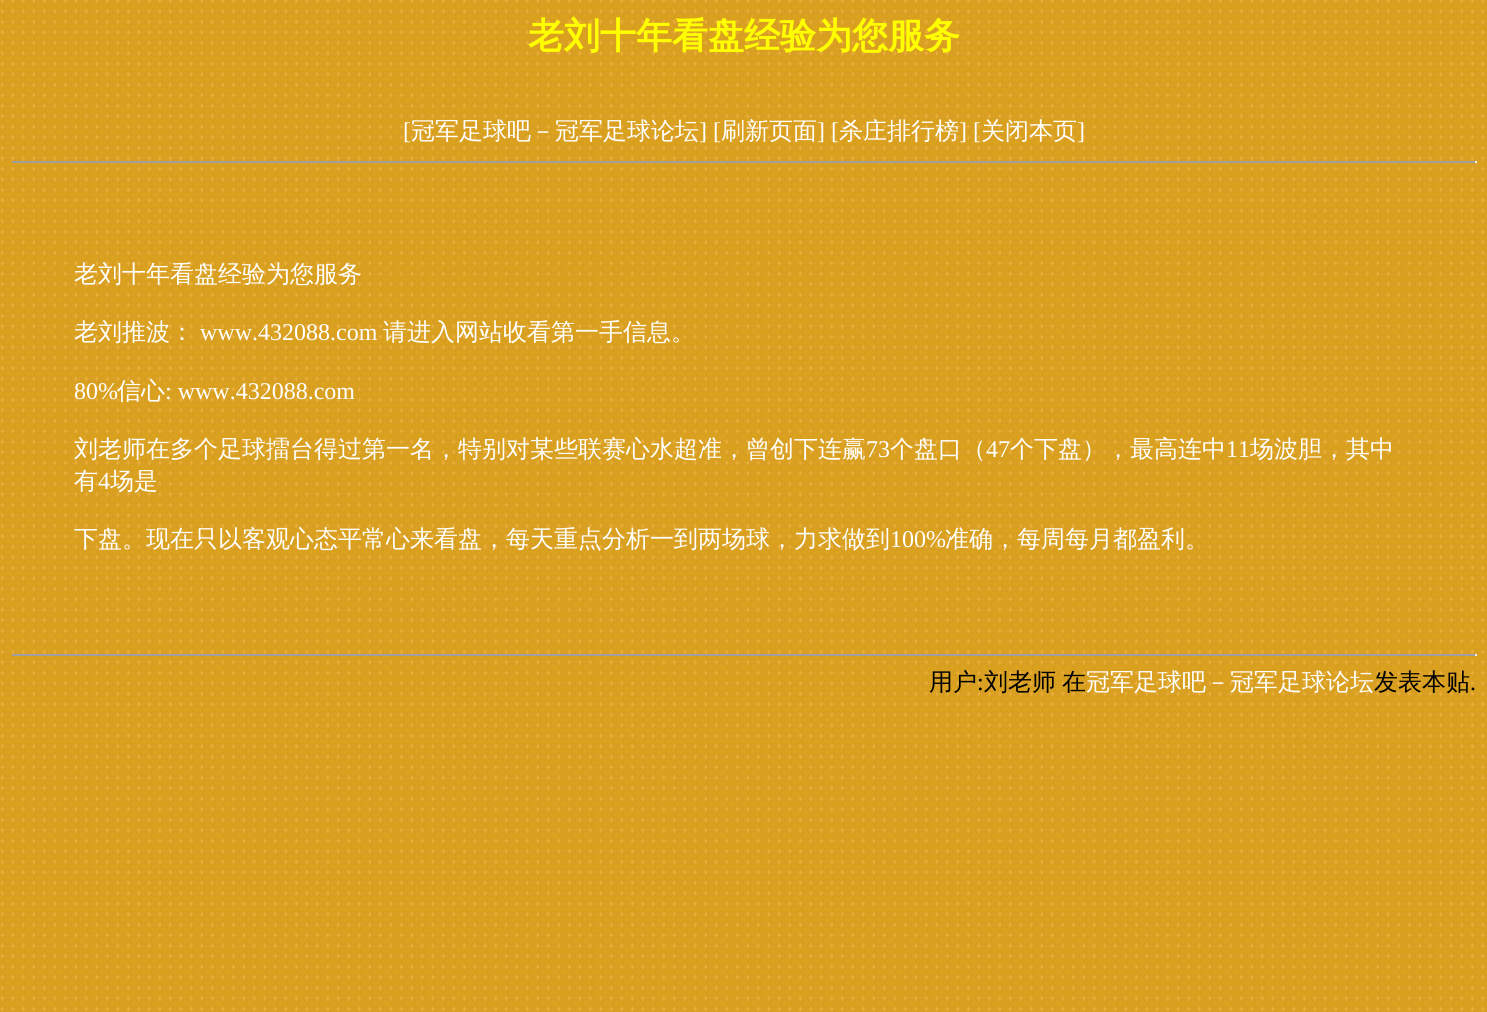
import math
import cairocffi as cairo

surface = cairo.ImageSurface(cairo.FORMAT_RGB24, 1487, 1012)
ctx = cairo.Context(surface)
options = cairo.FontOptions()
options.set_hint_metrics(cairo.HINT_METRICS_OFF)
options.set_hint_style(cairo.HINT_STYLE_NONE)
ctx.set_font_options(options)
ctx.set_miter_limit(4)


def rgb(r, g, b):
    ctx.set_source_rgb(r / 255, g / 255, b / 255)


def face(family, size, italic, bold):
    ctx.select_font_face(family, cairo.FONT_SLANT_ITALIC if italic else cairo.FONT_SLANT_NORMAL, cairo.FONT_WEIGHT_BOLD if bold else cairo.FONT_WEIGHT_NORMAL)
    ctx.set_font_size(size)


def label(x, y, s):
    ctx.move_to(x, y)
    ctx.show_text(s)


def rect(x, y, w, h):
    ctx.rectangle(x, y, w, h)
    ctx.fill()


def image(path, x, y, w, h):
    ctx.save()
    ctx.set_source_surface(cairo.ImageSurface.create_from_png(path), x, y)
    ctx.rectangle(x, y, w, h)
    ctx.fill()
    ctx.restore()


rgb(255, 255, 255)
ctx.paint()
image('image0.png', 0, 0, 1487, 1012)
face('WenQuanYi Zen Hei', 36, 0, 1)
rgb(255, 255, 0)
label(528, 48, '老刘十年看盘经验为您服务')
face('Liberation Serif', 24, 0, 0)
rgb(255, 255, 255)
label(403, 139, '[')
face('WenQuanYi Zen Hei Medium', 24, 0, 0)
label(411, 139, '冠军足球吧－冠军足球论坛')
face('Liberation Serif', 24, 0, 0)
label(699, 139, '] [')
face('WenQuanYi Zen Hei Medium', 24, 0, 0)
label(721, 139, '刷新页面')
face('Liberation Serif', 24, 0, 0)
label(817, 139, '] [')
face('WenQuanYi Zen Hei Medium', 24, 0, 0)
label(839, 139, '杀庄排行榜')
face('Liberation Serif', 24, 0, 0)
label(959, 139, '] [')
face('WenQuanYi Zen Hei Medium', 24, 0, 0)
label(981, 139, '关闭本页')
face('Liberation Serif', 24, 0, 0)
label(1077, 139, ']')
rgb(159, 159, 159)
rect(12, 161, 1464, 2)
rgb(238, 238, 238)
rect(1475, 161, 2, 2)
face('WenQuanYi Zen Hei Medium', 24, 0, 0)
rgb(255, 255, 255)
label(74, 282, '老刘十年看盘经验为您服务')
label(74, 340, '老刘推波：')
face('Liberation Serif', 24, 0, 0)
label(200, 340, 'www.432088.com')
face('WenQuanYi Zen Hei Medium', 24, 0, 0)
label(383, 340, '请进入网站收看第一手信息。')
face('Liberation Serif', 24, 0, 0)
label(74, 399, '80%')
face('WenQuanYi Zen Hei Medium', 24, 0, 0)
label(117, 399, '信心')
face('Liberation Serif', 24, 0, 0)
label(165, 399, ': www.432088.com')
face('WenQuanYi Zen Hei Medium', 24, 0, 0)
label(74, 457, '刘老师在多个足球擂台得过第一名，特别对某些联赛心水超准，曾创下连赢')
face('Liberation Serif', 24, 0, 0)
label(866, 457, '73')
face('WenQuanYi Zen Hei Medium', 24, 0, 0)
label(890, 457, '个盘口（')
face('Liberation Serif', 24, 0, 0)
label(986, 457, '47')
face('WenQuanYi Zen Hei Medium', 24, 0, 0)
label(1010, 457, '个下盘），最高连中')
face('Liberation Serif', 24, 0, 0)
label(1226, 457, '11')
face('WenQuanYi Zen Hei Medium', 24, 0, 0)
label(1250, 457, '场波胆，其中')
label(74, 489, '有')
face('Liberation Serif', 24, 0, 0)
label(98, 489, '4')
face('WenQuanYi Zen Hei Medium', 24, 0, 0)
label(110, 489, '场是')
label(74, 547, '下盘。现在只以客观心态平常心来看盘，每天重点分析一到两场球，力求做到')
face('Liberation Serif', 24, 0, 0)
label(890, 547, '100%')
face('WenQuanYi Zen Hei Medium', 24, 0, 0)
label(945, 547, '准确，每周每月都盈利。')
rgb(159, 159, 159)
rect(12, 654, 1464, 2)
rgb(238, 238, 238)
rect(1475, 654, 2, 2)
rgb(0, 0, 0)
label(929, 690, '用户')
face('Liberation Serif', 24, 0, 0)
label(977, 690, ':')
face('WenQuanYi Zen Hei Medium', 24, 0, 0)
label(984, 690, '刘老师')
label(1062, 690, '在')
rgb(255, 255, 255)
label(1086, 690, '冠军足球吧－冠军足球论坛')
rgb(0, 0, 0)
label(1374, 690, '发表本贴')
face('Liberation Serif', 24, 0, 0)
label(1470, 690, '.')
surface.write_to_png('render.png')
